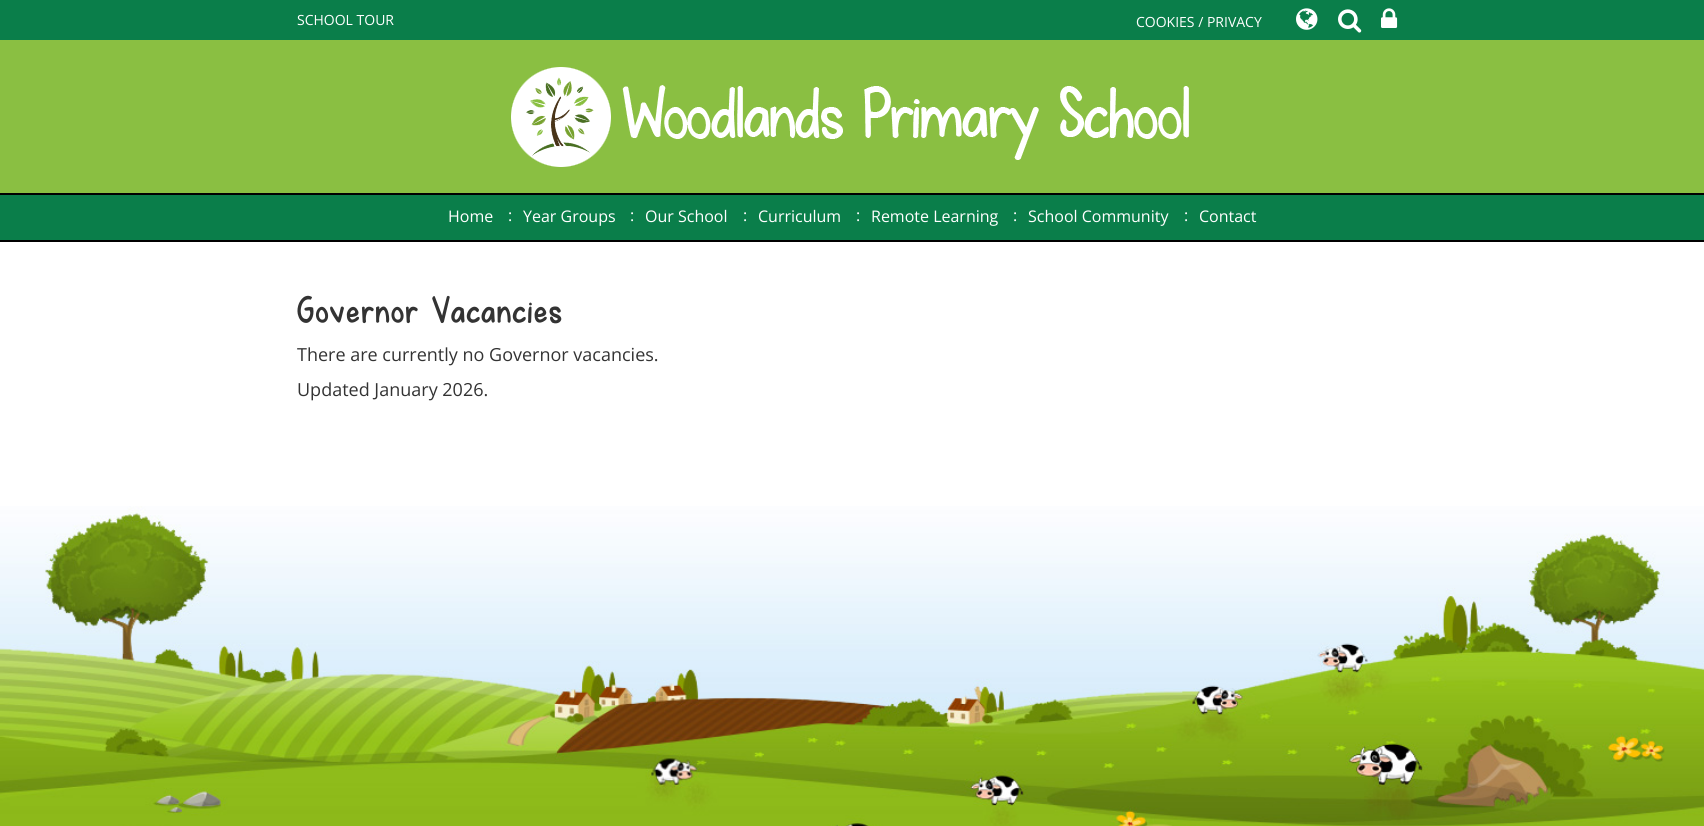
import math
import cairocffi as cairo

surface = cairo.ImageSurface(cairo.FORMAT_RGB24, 1704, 826)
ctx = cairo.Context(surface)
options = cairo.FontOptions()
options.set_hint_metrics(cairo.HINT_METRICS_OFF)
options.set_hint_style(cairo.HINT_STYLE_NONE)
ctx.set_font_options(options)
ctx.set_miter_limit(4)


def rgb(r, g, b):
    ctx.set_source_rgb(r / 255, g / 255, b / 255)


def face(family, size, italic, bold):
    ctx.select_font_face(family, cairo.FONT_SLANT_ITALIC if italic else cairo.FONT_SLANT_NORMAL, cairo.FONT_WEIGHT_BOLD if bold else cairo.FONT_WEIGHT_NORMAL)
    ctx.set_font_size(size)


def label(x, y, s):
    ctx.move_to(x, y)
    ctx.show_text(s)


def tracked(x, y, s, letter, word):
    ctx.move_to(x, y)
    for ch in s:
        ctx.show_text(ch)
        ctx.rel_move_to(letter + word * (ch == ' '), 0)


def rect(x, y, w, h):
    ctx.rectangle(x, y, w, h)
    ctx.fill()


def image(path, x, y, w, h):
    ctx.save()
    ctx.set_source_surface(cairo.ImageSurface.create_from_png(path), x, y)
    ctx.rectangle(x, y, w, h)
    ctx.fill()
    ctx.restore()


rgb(255, 255, 255)
ctx.paint()
rgb(10, 126, 74)
rect(0, 0, 1704, 40)
face('Open Sans', 14, 0, 0)
rgb(255, 255, 255)
label(297, 25, 'SCHOOL TOUR')
label(1136, 27, 'COOKIES / PRIVACY')
image('image0.png', 1296, 8, 22, 22)
image('image1.png', 1338, 9, 24, 24)
image('image2.png', 1381, 8, 17, 20)
rgb(138, 191, 66)
rect(0, 40, 1704, 153)
image('image3.png', 511, 67, 678, 100)
rgb(10, 126, 74)
rect(0, 195, 1704, 45)
rgb(0, 0, 0)
rect(0, 193, 1704, 2)
rect(0, 240, 1704, 2)
face('Open Sans', 16, 0, 0)
rgb(255, 255, 255)
label(448, 222, 'Home')
label(508, 221, ':')
label(523, 222, 'Year Groups')
label(630, 221, ':')
label(645, 222, 'Our School')
label(743, 221, ':')
label(758, 222, 'Curriculum')
label(856, 221, ':')
label(871, 222, 'Remote Learning')
label(1013, 221, ':')
label(1028, 222, 'School Community')
label(1184, 221, ':')
label(1199, 222, 'Contact')
face('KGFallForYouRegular', 36, 0, 1)
rgb(51, 51, 51)
tracked(297, 323, 'Governor Vacancies', 2, 0)
face('Open Sans', 18, 0, 0)
label(297, 361, 'There are currently no Governor vacancies.')
label(297, 396, 'Updated January 2026.')
image('image4.png', 0, 506, 1704, 320)
surface.write_to_png('render.png')
